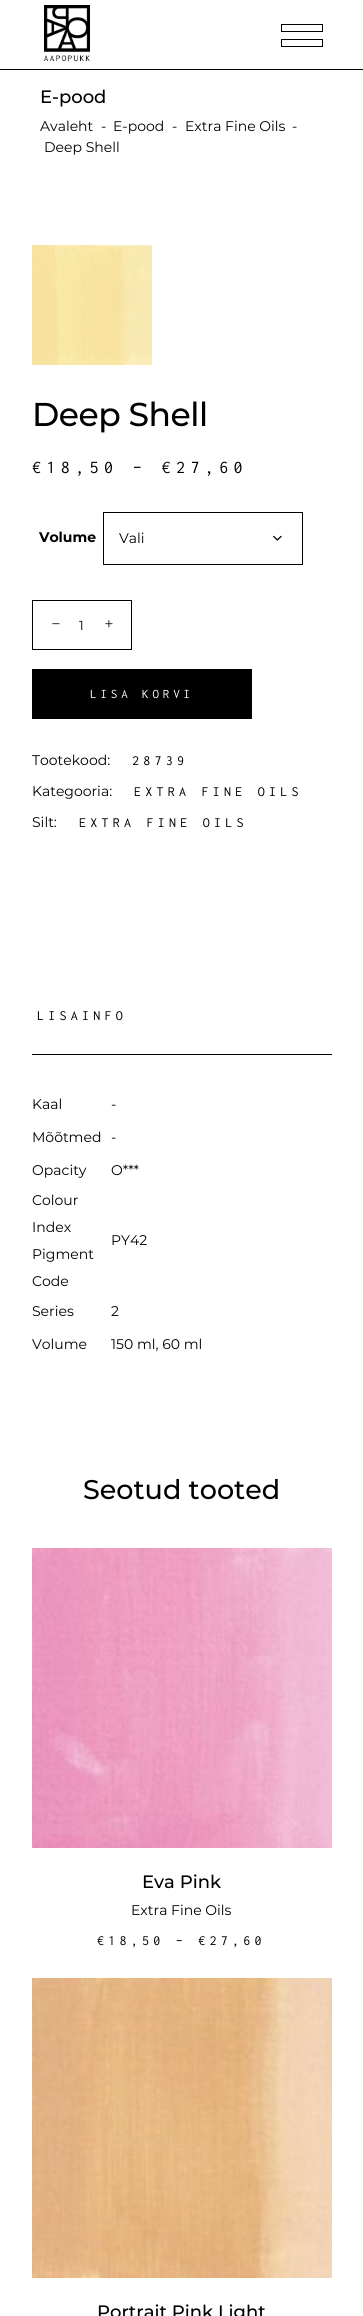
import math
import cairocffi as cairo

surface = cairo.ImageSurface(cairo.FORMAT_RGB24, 363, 2316)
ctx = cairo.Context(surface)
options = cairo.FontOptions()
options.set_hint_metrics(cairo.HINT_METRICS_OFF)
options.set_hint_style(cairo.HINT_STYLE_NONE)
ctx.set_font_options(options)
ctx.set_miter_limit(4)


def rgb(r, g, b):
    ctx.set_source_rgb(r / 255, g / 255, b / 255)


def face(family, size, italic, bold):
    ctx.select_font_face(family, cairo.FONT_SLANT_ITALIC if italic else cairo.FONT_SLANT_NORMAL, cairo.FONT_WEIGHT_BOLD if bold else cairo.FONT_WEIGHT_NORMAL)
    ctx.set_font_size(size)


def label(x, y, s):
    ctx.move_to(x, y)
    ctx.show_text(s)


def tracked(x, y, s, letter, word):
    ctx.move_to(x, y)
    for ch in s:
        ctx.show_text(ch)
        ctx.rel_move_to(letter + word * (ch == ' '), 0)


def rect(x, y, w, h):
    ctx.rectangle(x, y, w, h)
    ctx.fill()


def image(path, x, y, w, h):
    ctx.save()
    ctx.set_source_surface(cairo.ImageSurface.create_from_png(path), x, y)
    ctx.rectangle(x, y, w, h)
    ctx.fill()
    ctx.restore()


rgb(255, 255, 255)
ctx.paint()
rgb(0, 0, 0)
rect(0, 69, 363, 1)
image('image0.png', 44, 5, 46, 57)
ctx.rectangle(281.5, 24.5, 41, 7)
ctx.set_line_width(1)
ctx.stroke()
ctx.rectangle(281.5, 39.5, 41, 7)
ctx.stroke()
face('Montserrat Medium', 18, 0, 0)
label(40, 103, 'E-pood')
face('Montserrat', 14, 0, 0)
label(40, 131, 'Avaleht')
label(101, 131, '-')
label(113, 131, 'E-pood')
label(172, 131, '-')
label(185, 131, 'Extra Fine Oils')
label(292, 131, '-')
label(44, 152, 'Deep Shell')
image('image1.png', 32, 245, 120, 120)
face('Montserrat Medium', 33, 0, 0)
tracked(32, 426, 'Deep Shell', -0.5, 0)
face('Inconsolata', 18, 0, 0)
tracked(32, 473, '€18,50 – €27,60', 5.4, 0)
face('Montserrat', 14, 0, 1)
label(39, 542, 'Volume')
ctx.rectangle(103.5, 512.5, 199, 52)
ctx.stroke()
face('Montserrat', 14, 0, 0)
label(119, 543, 'Vali')
image('image2.png', 273, 535, 9, 6)
ctx.rectangle(32.5, 600.5, 99, 49)
ctx.stroke()
image('image3.png', 52, 623, 8, 2)
face('Montserrat', 13, 0, 0)
label(79, 630, '1')
image('image4.png', 105, 620, 8, 8)
rect(32, 669, 220, 50)
face('Inconsolata', 13, 0, 0)
rgb(255, 255, 255)
tracked(90, 698, 'LISA KORVI', 3.9, 0)
face('Montserrat', 14, 0, 0)
rgb(0, 0, 0)
label(32, 765, 'Tootekood:')
face('Inconsolata', 14, 0, 0)
tracked(132, 765, '28739', 4.25, 0)
face('Montserrat', 14, 0, 0)
label(32, 796, 'Kategooria:')
face('Inconsolata', 14, 0, 0)
tracked(134, 796, 'EXTRA FINE OILS', 4.25, 0)
face('Montserrat', 14, 0, 0)
label(32, 827, 'Silt:')
face('Inconsolata', 14, 0, 0)
tracked(79, 827, 'EXTRA FINE OILS', 4.25, 0)
rgb(1, 1, 1)
rect(32, 1054, 300, 1)
rgb(0, 0, 0)
tracked(37, 1020, 'LISAINFO', 4.25, 0)
face('Montserrat', 14, 0, 0)
label(32, 1109, 'Kaal')
label(111, 1109, '-')
label(32, 1142, 'Mõõtmed')
label(111, 1142, '-')
label(32, 1175, 'Opacity')
label(111, 1175, 'O***')
label(32, 1205, 'Colour')
label(32, 1232, 'Index')
label(32, 1259, 'Pigment')
label(32, 1286, 'Code')
label(111, 1245, 'PY42')
label(32, 1316, 'Series')
label(111, 1316, '2')
label(32, 1349, 'Volume')
label(111, 1349, '150 ml, 60 ml')
face('Montserrat Medium', 27, 0, 0)
label(83, 1499, 'Seotud tooted')
image('image5.png', 32, 1548, 300, 300)
face('Montserrat Medium', 18, 0, 0)
label(142, 1888, 'Eva Pink')
face('Montserrat', 14, 0, 0)
label(131, 1915, 'Extra Fine Oils')
face('Inconsolata', 14, 0, 0)
tracked(97, 1945, '€18,50 – €27,60', 4.25, 0)
image('image6.png', 32, 1978, 300, 300)
face('Montserrat Medium', 18, 0, 0)
label(97, 2318, 'Portrait Pink Light')
surface.write_to_png('render.png')
